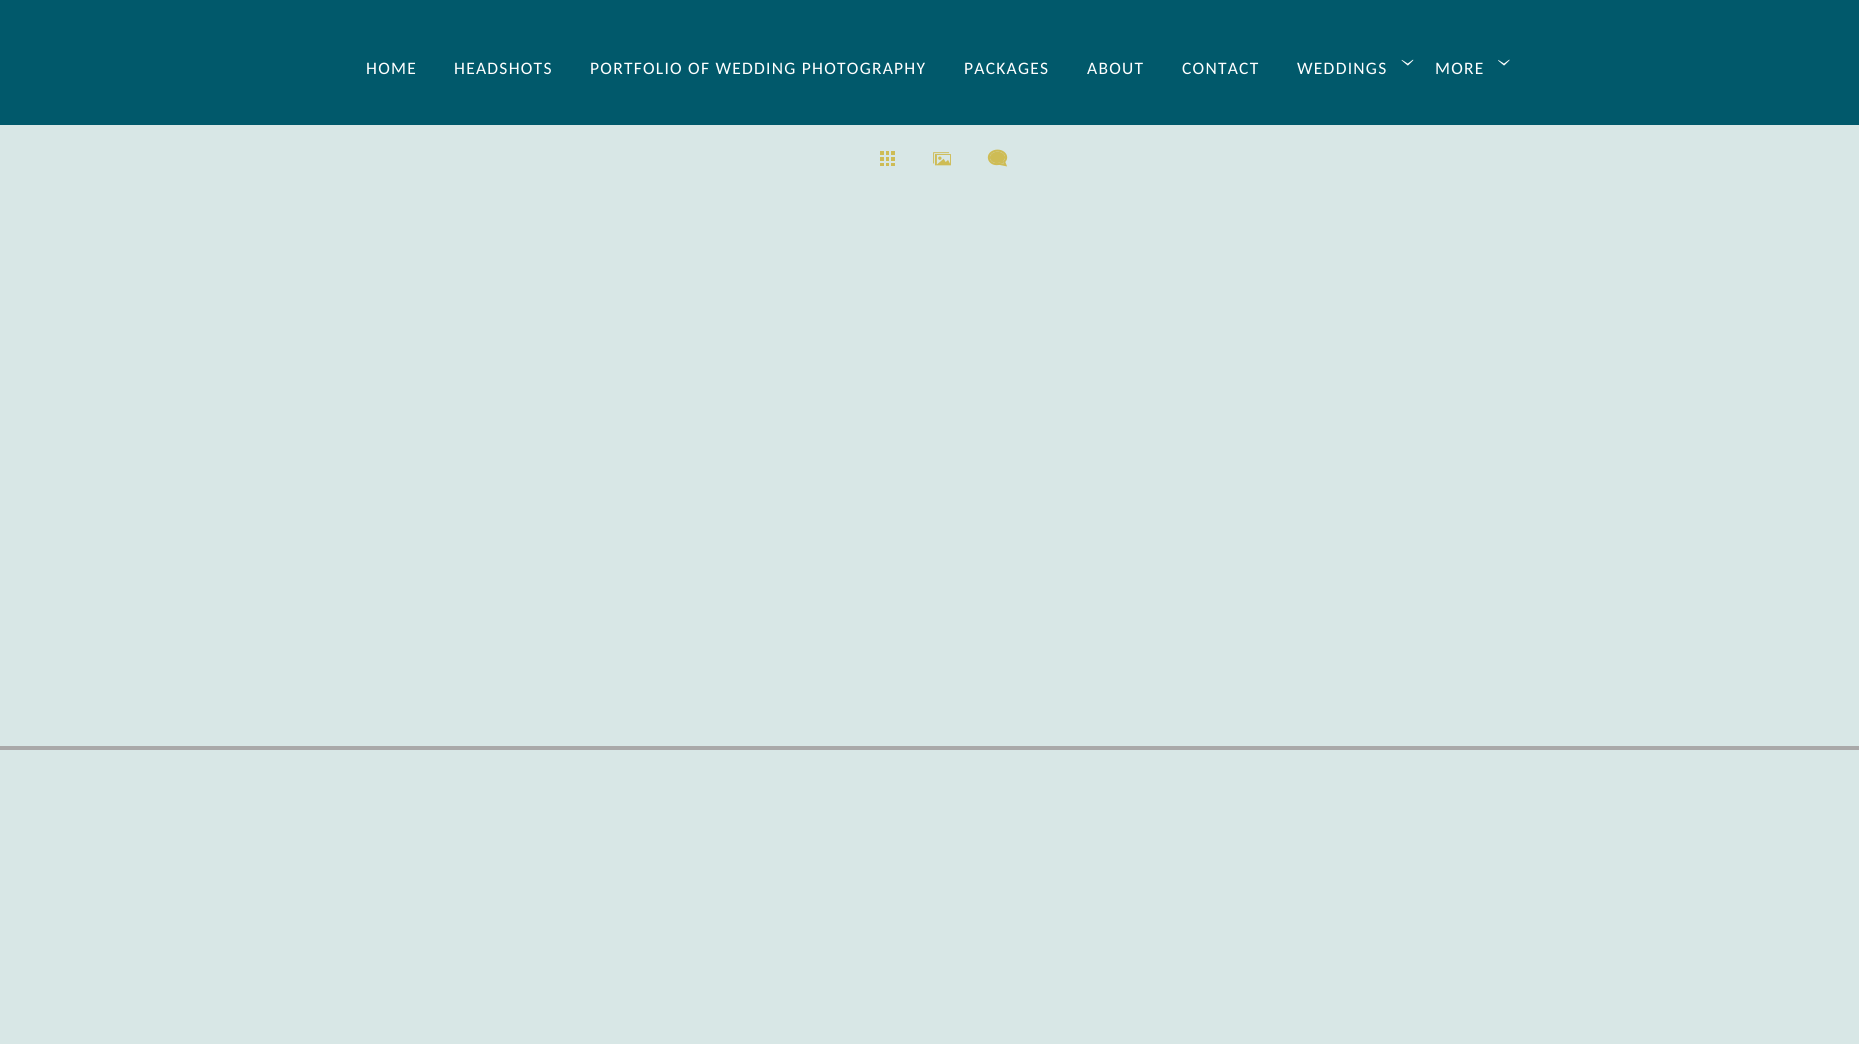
import math
import cairocffi as cairo

surface = cairo.ImageSurface(cairo.FORMAT_RGB24, 1859, 1044)
ctx = cairo.Context(surface)
options = cairo.FontOptions()
options.set_hint_metrics(cairo.HINT_METRICS_OFF)
options.set_hint_style(cairo.HINT_STYLE_NONE)
ctx.set_font_options(options)
ctx.set_miter_limit(4)


def rgb(r, g, b):
    ctx.set_source_rgb(r / 255, g / 255, b / 255)


def face(family, size, italic, bold):
    ctx.select_font_face(family, cairo.FONT_SLANT_ITALIC if italic else cairo.FONT_SLANT_NORMAL, cairo.FONT_WEIGHT_BOLD if bold else cairo.FONT_WEIGHT_NORMAL)
    ctx.set_font_size(size)


def tracked(x, y, s, letter, word):
    ctx.move_to(x, y)
    for ch in s:
        ctx.show_text(ch)
        ctx.rel_move_to(letter + word * (ch == ' '), 0)


def rect(x, y, w, h):
    ctx.rectangle(x, y, w, h)
    ctx.fill()


def image(path, x, y, w, h):
    ctx.save()
    ctx.set_source_surface(cairo.ImageSurface.create_from_png(path), x, y)
    ctx.rectangle(x, y, w, h)
    ctx.fill()
    ctx.restore()


rgb(216, 231, 230)
ctx.paint()
rgb(1, 89, 107)
rect(0, 0, 1859, 125)
face('Carlito', 17.5, 0, 0)
rgb(255, 255, 255)
tracked(366, 74, 'HOME', 1.25, 0)
tracked(454, 74, 'HEADSHOTS', 1.25, 0)
tracked(590, 74, 'PORTFOLIO OF WEDDING PHOTOGRAPHY', 1.25, 0)
tracked(964, 74, 'PACKAGES', 1.25, 0)
tracked(1087, 74, 'ABOUT', 1.25, 0)
tracked(1182, 74, 'CONTACT', 1.25, 0)
tracked(1297, 74, 'WEDDINGS', 1.25, 0)
image('image0.png', 1401, 59, 13, 7)
tracked(1435, 74, 'MORE', 1.25, 0)
image('image1.png', 1498, 59, 12, 7)
image('image2.png', 880, 151, 15, 15)
image('image3.png', 933, 152, 18, 14)
image('image4.png', 987, 149, 21, 18)
rgb(169, 169, 169)
rect(0, 746, 1859, 4)
surface.write_to_png('render.png')
